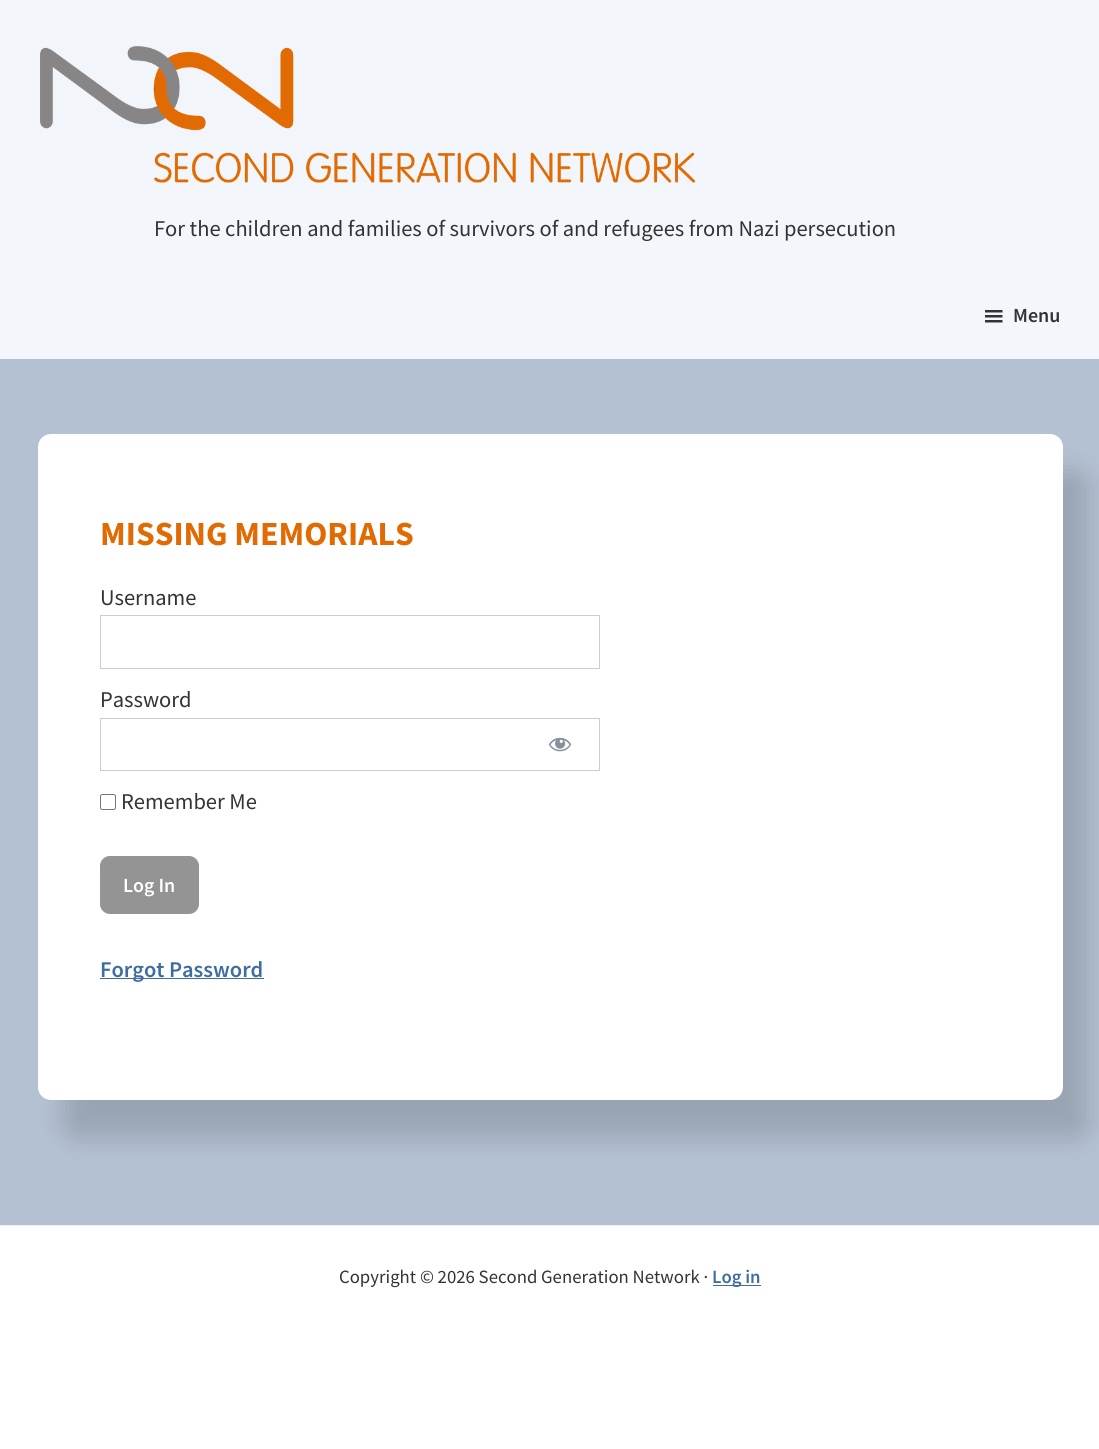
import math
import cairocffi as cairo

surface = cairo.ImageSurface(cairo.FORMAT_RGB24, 1099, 1449)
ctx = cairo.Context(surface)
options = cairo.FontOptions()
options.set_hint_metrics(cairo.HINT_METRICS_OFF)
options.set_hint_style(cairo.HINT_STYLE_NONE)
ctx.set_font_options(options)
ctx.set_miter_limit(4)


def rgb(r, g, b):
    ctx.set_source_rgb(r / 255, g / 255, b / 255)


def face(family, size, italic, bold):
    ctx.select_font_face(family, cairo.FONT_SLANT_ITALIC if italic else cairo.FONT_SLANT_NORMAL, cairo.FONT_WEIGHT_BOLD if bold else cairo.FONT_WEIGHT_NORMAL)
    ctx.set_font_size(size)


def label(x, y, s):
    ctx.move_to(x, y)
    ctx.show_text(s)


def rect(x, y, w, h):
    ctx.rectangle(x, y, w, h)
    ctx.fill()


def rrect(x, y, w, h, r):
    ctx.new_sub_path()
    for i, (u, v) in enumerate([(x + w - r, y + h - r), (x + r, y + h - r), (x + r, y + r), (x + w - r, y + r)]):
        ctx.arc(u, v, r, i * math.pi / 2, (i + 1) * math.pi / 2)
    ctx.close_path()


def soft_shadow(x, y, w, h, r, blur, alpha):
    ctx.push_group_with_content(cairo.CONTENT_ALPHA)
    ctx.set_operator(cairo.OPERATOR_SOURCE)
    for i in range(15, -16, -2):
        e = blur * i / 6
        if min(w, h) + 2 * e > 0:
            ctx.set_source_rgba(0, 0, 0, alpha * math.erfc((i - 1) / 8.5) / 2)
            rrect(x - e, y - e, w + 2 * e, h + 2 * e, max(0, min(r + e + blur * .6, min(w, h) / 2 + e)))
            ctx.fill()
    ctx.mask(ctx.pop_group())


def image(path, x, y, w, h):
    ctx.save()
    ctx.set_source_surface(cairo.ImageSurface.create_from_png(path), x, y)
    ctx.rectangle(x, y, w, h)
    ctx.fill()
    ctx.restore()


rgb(255, 255, 255)
ctx.paint()
rgb(243, 247, 251)
rect(0, 0, 1099, 359)
image('image0.png', 40, 46, 655, 137)
face('Source Sans Pro', 22.5, 0, 0)
rgb(51, 51, 51)
label(154, 236, 'For the children and families of survivors of and refugees from Nazi persecution')
image('image1.png', 985, 310, 18, 13)
face('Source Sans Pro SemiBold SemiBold', 20, 0, 0)
label(1013, 322, 'Menu')
rgb(180, 193, 210)
rect(0, 359, 1099, 866)
rgb(0, 0, 0)
soft_shadow(63, 471, 1025, 667, 13, 12.5, 0.15)
rgb(255, 255, 255)
rrect(38, 434, 1025, 666, 13)
ctx.fill()
face('Source Sans Pro', 33.75, 0, 1)
rgb(225, 107, 2)
label(100, 545, 'MISSING MEMORIALS')
face('Source Sans Pro', 22.5, 0, 0)
rgb(51, 51, 51)
label(100, 605, 'Username')
ctx.rectangle(100.5, 615.5, 499, 53)
rgb(204, 204, 204)
ctx.set_line_width(1)
ctx.stroke()
rgb(51, 51, 51)
label(100, 707, 'Password')
ctx.rectangle(100.5, 718.5, 499, 52)
rgb(204, 204, 204)
ctx.stroke()
image('image2.png', 548, 737, 24, 15)
rrect(100.5, 794.5, 15, 15, 2)
rgb(118, 118, 118)
ctx.stroke()
rgb(51, 51, 51)
label(121, 809, 'Remember Me')
rgb(148, 148, 148)
rrect(100.5, 856.5, 98, 57, 9.5)
ctx.fill_preserve()
ctx.stroke()
face('Source Sans Pro SemiBold SemiBold', 20, 0, 0)
rgb(255, 255, 255)
label(123, 892, 'Log In')
rgb(64, 109, 160)
rect(100, 978, 164, 1)
face('Source Sans Pro SemiBold SemiBold', 22.5, 0, 0)
label(100, 977, 'Forgot Password')
rgb(238, 238, 238)
rect(0, 1225, 1099, 1)
face('Source Sans Pro', 18.75, 0, 0)
rgb(51, 51, 51)
label(339, 1283, 'Copyright © 2026 Second Generation Network ·')
rgb(64, 109, 160)
rect(713, 1285, 48, 1)
face('Source Sans Pro SemiBold SemiBold', 18.75, 0, 0)
label(712, 1283, 'Log in')
surface.write_to_png('render.png')
